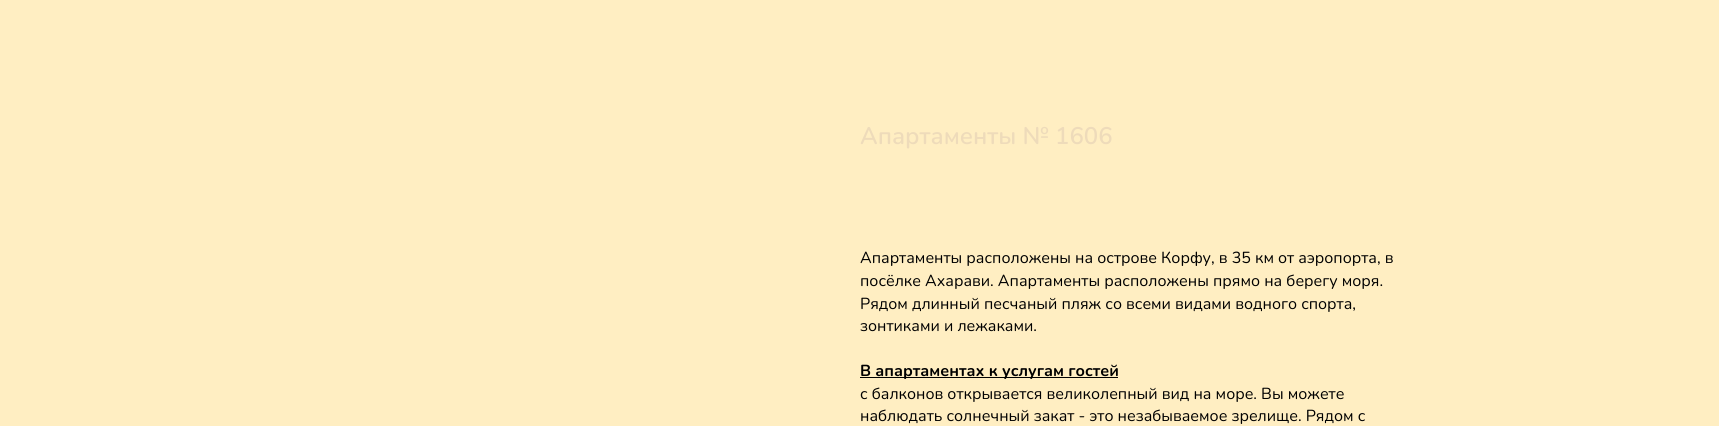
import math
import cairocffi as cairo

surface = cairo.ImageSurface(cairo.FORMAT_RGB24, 1719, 426)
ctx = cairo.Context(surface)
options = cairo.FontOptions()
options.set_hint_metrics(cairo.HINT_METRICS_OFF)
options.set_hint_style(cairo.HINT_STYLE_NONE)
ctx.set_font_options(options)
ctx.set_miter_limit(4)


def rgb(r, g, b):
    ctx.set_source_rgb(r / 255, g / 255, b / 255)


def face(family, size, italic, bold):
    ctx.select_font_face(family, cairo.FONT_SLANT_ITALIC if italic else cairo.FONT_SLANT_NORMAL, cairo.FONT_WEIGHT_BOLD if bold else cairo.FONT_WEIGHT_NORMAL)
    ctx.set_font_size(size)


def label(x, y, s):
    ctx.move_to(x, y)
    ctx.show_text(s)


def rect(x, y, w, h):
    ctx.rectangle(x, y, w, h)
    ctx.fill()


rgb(255, 238, 194)
ctx.paint()
face('Nunito SemiBold', 24, 0, 0)
rgb(238, 219, 186)
label(860, 144, 'Апартаменты № 1606')
face('Nunito', 16, 0, 0)
rgb(0, 0, 0)
label(860, 263, 'Апартаменты расположены на острове Корфу, в 35 км от аэропорта, в')
label(860, 286, 'посёлке Ахарави. Апартаменты расположены прямо на берегу моря.')
label(860, 309, 'Рядом длинный песчаный пляж со всеми видами водного спорта,')
label(860, 331, 'зонтиками и лежаками.')
rect(860, 377, 258, 1)
face('Nunito', 16, 0, 1)
label(860, 376, 'В апартаментах к услугам гостей')
face('Nunito', 16, 0, 0)
label(860, 399, 'с балконов открывается великолепный вид на море. Вы можете')
label(860, 421, 'наблюдать солнечный закат - это незабываемое зрелище. Рядом с')
surface.write_to_png('render.png')
